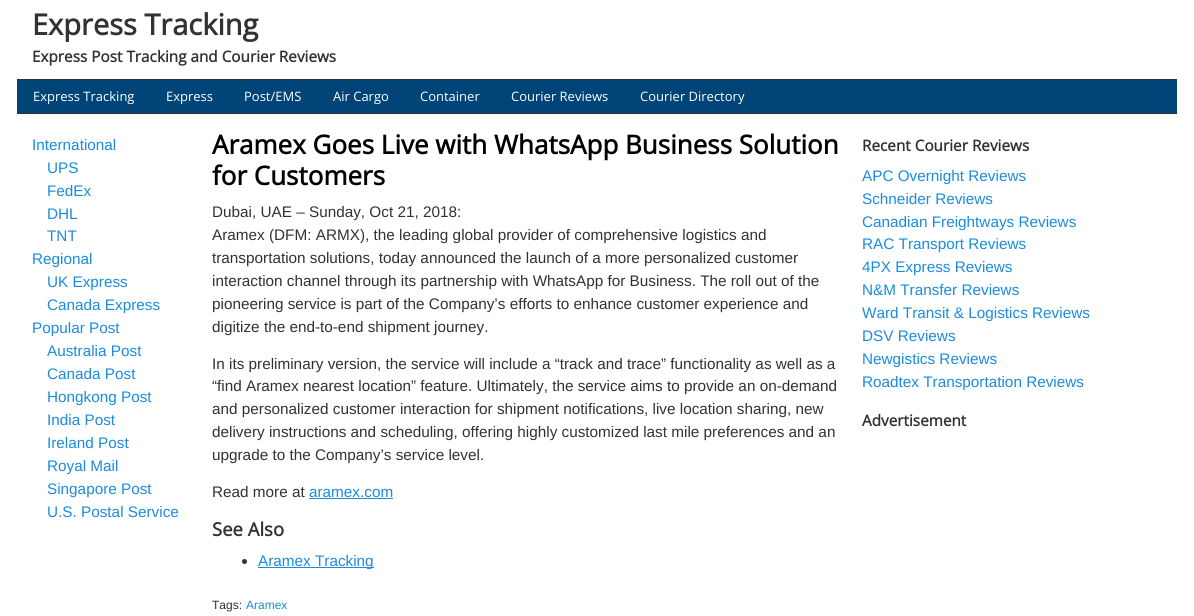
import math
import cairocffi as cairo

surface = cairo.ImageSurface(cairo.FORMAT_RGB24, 1194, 616)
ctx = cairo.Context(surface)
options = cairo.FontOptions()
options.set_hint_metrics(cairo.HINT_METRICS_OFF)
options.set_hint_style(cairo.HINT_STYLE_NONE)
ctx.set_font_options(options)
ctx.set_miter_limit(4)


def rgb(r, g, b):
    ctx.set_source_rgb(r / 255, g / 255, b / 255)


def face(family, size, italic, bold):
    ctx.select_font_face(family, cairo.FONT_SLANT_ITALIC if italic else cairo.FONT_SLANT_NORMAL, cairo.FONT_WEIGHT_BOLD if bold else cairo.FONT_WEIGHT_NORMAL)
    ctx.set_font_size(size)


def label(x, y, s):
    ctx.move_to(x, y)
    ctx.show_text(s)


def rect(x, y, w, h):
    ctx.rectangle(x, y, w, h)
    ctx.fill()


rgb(255, 255, 255)
ctx.paint()
rgb(50, 50, 50)
rect(17, 79, 1160, 1)
face('Open Sans', 29, 0, 1)
label(32, 35, 'Express Tracking')
face('Open Sans', 15.3, 0, 1)
label(32, 62, 'Express Post Tracking and Courier Reviews')
rgb(0, 68, 120)
rect(17, 80, 1160, 33)
rgb(50, 50, 50)
rect(17, 113, 1160, 1)
face('Open Sans', 13, 0, 0)
rgb(255, 255, 255)
label(33, 101, 'Express Tracking')
label(166, 101, 'Express')
label(244, 101, 'Post/EMS')
label(333, 101, 'Air Cargo')
label(420, 101, 'Container')
label(511, 101, 'Courier Reviews')
label(640, 101, 'Courier Directory')
face('Liberation Sans', 15.3, 0, 0)
rgb(27, 139, 224)
label(32, 150, 'International')
label(47, 173, 'UPS')
label(47, 196, 'FedEx')
label(47, 219, 'DHL')
label(47, 241, 'TNT')
label(32, 264, 'Regional')
label(47, 287, 'UK Express')
label(47, 310, 'Canada Express')
label(32, 333, 'Popular Post')
label(47, 356, 'Australia Post')
label(47, 379, 'Canada Post')
label(47, 402, 'Hongkong Post')
label(47, 425, 'India Post')
label(47, 448, 'Ireland Post')
label(47, 471, 'Royal Mail')
label(47, 494, 'Singapore Post')
label(47, 517, 'U.S. Postal Service')
face('Open Sans', 26, 0, 1)
rgb(0, 0, 0)
label(212, 154, 'Aramex Goes Live with WhatsApp Business Solution')
label(212, 185, 'for Customers')
face('Liberation Sans', 15.3, 0, 0)
rgb(50, 50, 50)
label(212, 217, 'Dubai, UAE – Sunday, Oct 21, 2018:')
label(212, 240, 'Aramex (DFM: ARMX), the leading global provider of comprehensive logistics and')
label(212, 263, 'transportation solutions, today announced the launch of a more personalized customer')
label(212, 286, 'interaction channel through its partnership with WhatsApp for Business. The roll out of the')
label(212, 309, 'pioneering service is part of the Company’s efforts to enhance customer experience and')
label(212, 332, 'digitize the end-to-end shipment journey.')
label(212, 369, 'In its preliminary version, the service will include a “track and trace” functionality as well as a')
label(212, 391, '“find Aramex nearest location” feature. Ultimately, the service aims to provide an on-demand')
label(212, 414, 'and personalized customer interaction for shipment notifications, live location sharing, new')
label(212, 437, 'delivery instructions and scheduling, offering highly customized last mile preferences and an')
label(212, 460, 'upgrade to the Company’s service level.')
label(212, 497, 'Read more at')
rgb(27, 139, 224)
label(309, 497, 'aramex.com')
rect(309, 498, 84, 1)
face('Open Sans', 18.5, 0, 1)
rgb(50, 50, 50)
label(212, 536, 'See Also')
ctx.new_path()
ctx.arc(244.5, 561.5, 2.5, 0, 2 * math.pi)
ctx.fill()
rgb(27, 139, 224)
rect(258, 567, 116, 1)
face('Liberation Sans', 15.3, 0, 0)
label(258, 566, 'Aramex Tracking')
face('Liberation Sans', 12, 0, 0)
rgb(50, 50, 50)
label(212, 609, 'Tags:')
rgb(27, 139, 224)
label(246, 609, 'Aramex')
face('Open Sans', 15.3, 0, 1)
rgb(50, 50, 50)
label(862, 151, 'Recent Courier Reviews')
face('Liberation Sans', 15.3, 0, 0)
rgb(27, 139, 224)
label(862, 181, 'APC Overnight Reviews')
label(862, 204, 'Schneider Reviews')
label(862, 227, 'Canadian Freightways Reviews')
label(862, 249, 'RAC Transport Reviews')
label(862, 272, '4PX Express Reviews')
label(862, 295, 'N&M Transfer Reviews')
label(862, 318, 'Ward Transit & Logistics Reviews')
label(862, 341, 'DSV Reviews')
label(862, 364, 'Newgistics Reviews')
label(862, 387, 'Roadtex Transportation Reviews')
face('Open Sans', 15.3, 0, 1)
rgb(50, 50, 50)
label(862, 426, 'Advertisement')
surface.write_to_png('render.png')
